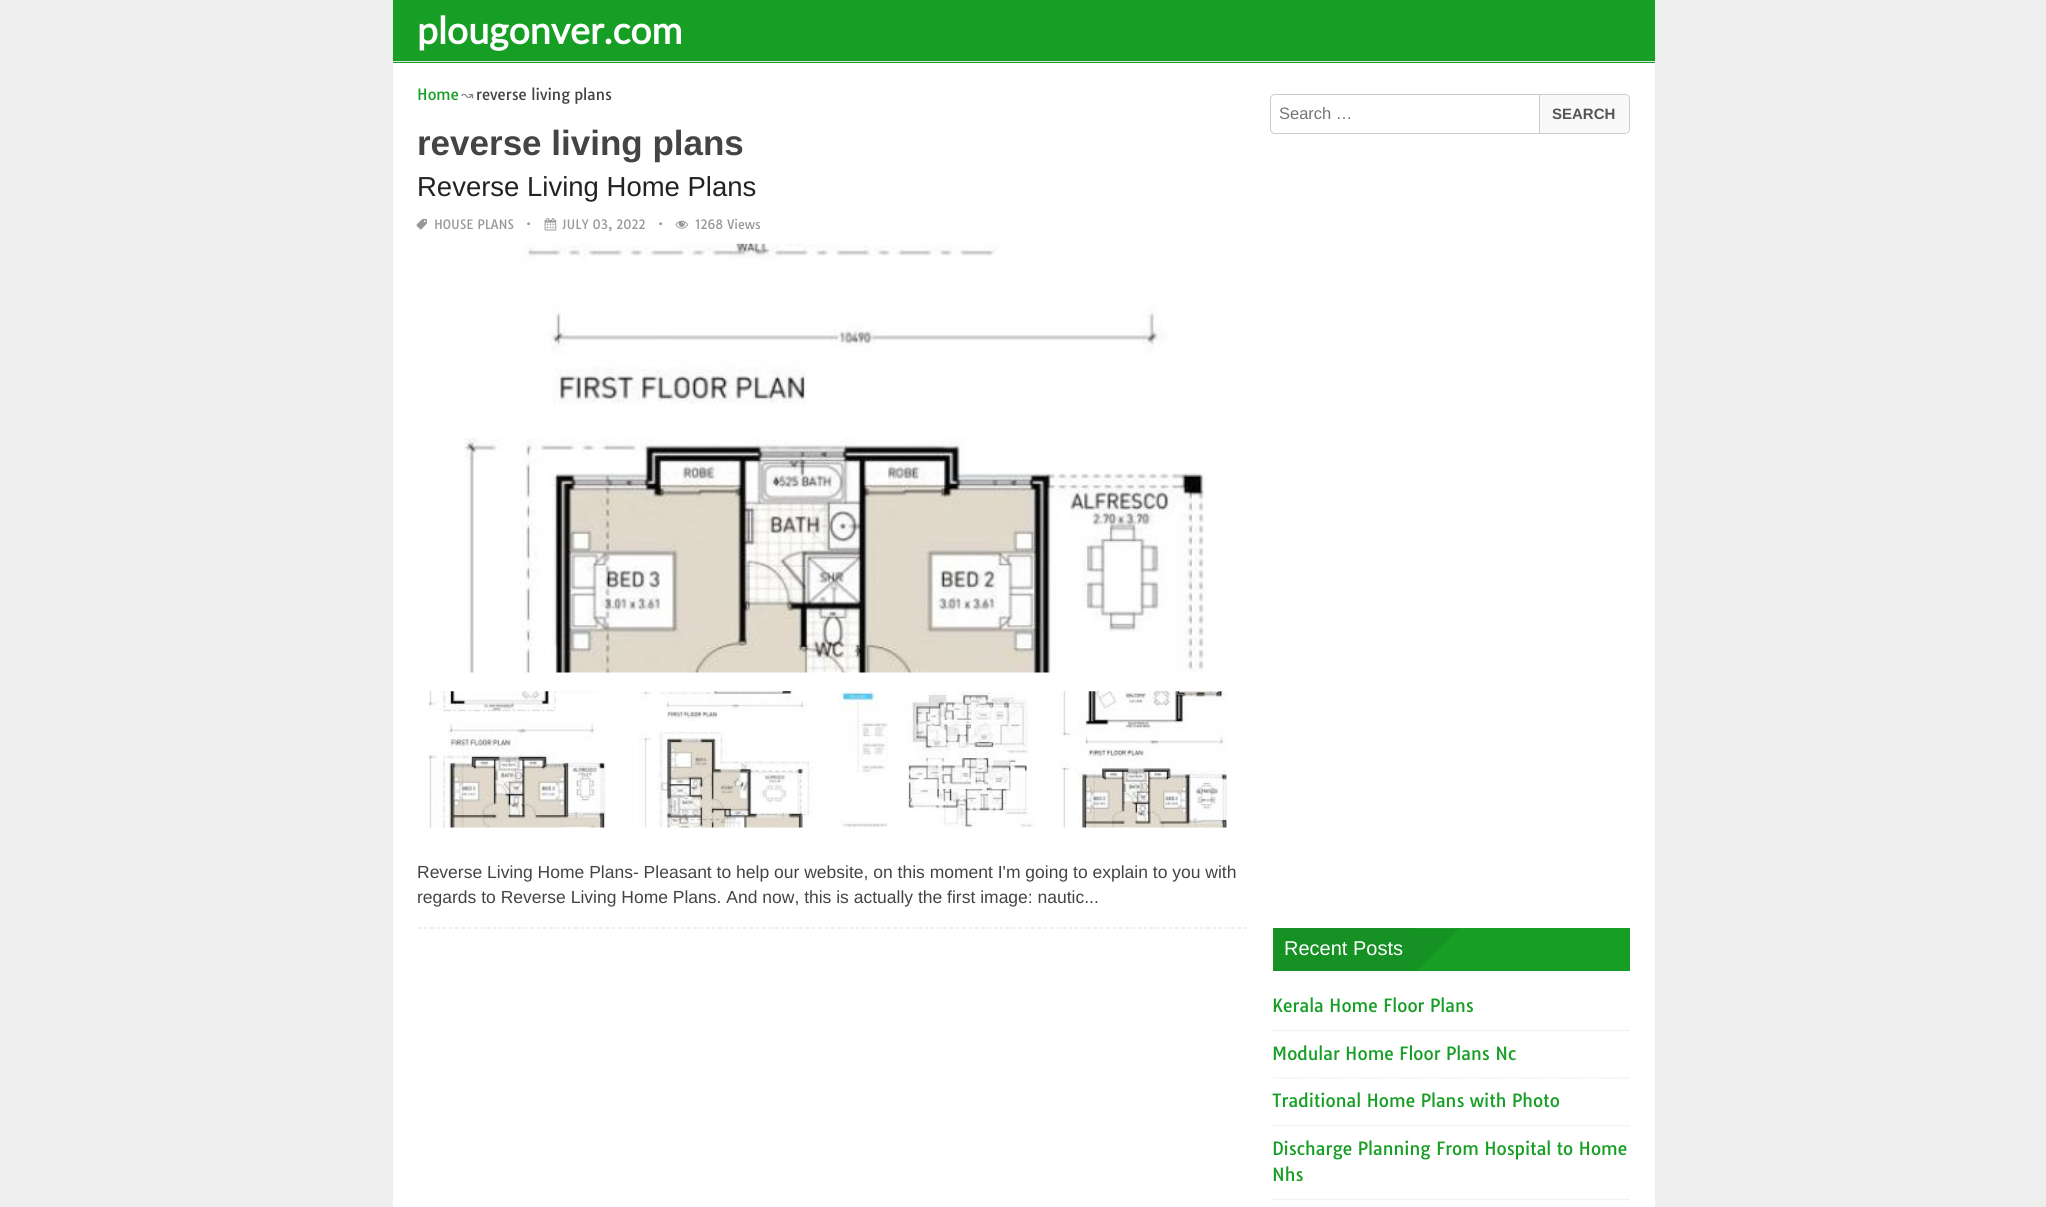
import math
import cairocffi as cairo

surface = cairo.ImageSurface(cairo.FORMAT_RGB24, 2046, 1207)
ctx = cairo.Context(surface)
options = cairo.FontOptions()
options.set_hint_metrics(cairo.HINT_METRICS_OFF)
options.set_hint_style(cairo.HINT_STYLE_NONE)
ctx.set_font_options(options)
ctx.set_miter_limit(4)


def rgb(r, g, b):
    ctx.set_source_rgb(r / 255, g / 255, b / 255)


def face(family, size, italic, bold):
    ctx.select_font_face(family, cairo.FONT_SLANT_ITALIC if italic else cairo.FONT_SLANT_NORMAL, cairo.FONT_WEIGHT_BOLD if bold else cairo.FONT_WEIGHT_NORMAL)
    ctx.set_font_size(size)


def label(x, y, s):
    ctx.move_to(x, y)
    ctx.show_text(s)


def rect(x, y, w, h):
    ctx.rectangle(x, y, w, h)
    ctx.fill()


def rrect(x, y, w, h, r):
    ctx.new_sub_path()
    for i, (u, v) in enumerate([(x + w - r, y + h - r), (x + r, y + h - r), (x + r, y + r), (x + w - r, y + r)]):
        ctx.arc(u, v, r, i * math.pi / 2, (i + 1) * math.pi / 2)
    ctx.close_path()


def image(path, x, y, w, h):
    ctx.save()
    ctx.set_source_surface(cairo.ImageSurface.create_from_png(path), x, y)
    ctx.rectangle(x, y, w, h)
    ctx.fill()
    ctx.restore()


rgb(238, 238, 238)
ctx.paint()
rgb(22, 158, 37)
rect(393, 0, 1262, 63)
rgb(219, 222, 226)
rect(393, 61, 1262, 1)
face('Lato', 37.5, 0, 1)
rgb(255, 255, 255)
label(417, 44, 'plougonver.com')
rect(393, 63, 1262, 1144)
face('Tauri', 15, 0, 0)
rgb(22, 158, 37)
label(417, 100, 'Home')
face('DejaVu Sans', 15, 0, 0)
rgb(136, 136, 136)
label(461, 100, '↝')
face('Tauri', 15, 0, 0)
rgb(68, 68, 68)
label(476, 100, 'reverse living plans')
face('Liberation Sans', 35, 0, 1)
label(417, 155, 'reverse living plans')
ctx.new_path()
ctx.move_to(417.5, 928)
ctx.line_to(1247.5, 928)
rgb(229, 229, 229)
ctx.set_line_width(1.2)
ctx.set_dash([3.75, 2.51])
ctx.stroke()
face('Liberation Sans', 27.5, 0, 0)
rgb(34, 34, 34)
label(417, 196, 'Reverse Living Home Plans')
image('image0.png', 416, 218, 11, 12)
face('Tauri', 12.5, 0, 0)
rgb(153, 153, 153)
label(434, 229, 'HOUSE PLANS')
label(526, 229, '•')
image('image1.png', 544, 218, 13, 13)
label(562, 229, 'JULY 03, 2022')
label(658, 229, '•')
image('image2.png', 675, 220, 13, 9)
label(695, 229, '1268 Views')
image('image3.png', 463, 243, 744, 430)
image('image4.png', 428, 691, 178, 137)
image('image5.png', 639, 691, 176, 137)
image('image6.png', 838, 691, 198, 137)
image('image7.png', 1059, 691, 169, 137)
face('Liberation Sans', 17.5, 0, 0)
rgb(68, 68, 68)
label(417, 878, 'Reverse Living Home Plans- Pleasant to help our website, on this moment I\'m going to explain to you with')
label(417, 903, 'regards to Reverse Living Home Plans. And now, this is actually the first image: nautic...')
rrect(1270.5, 94.5, 359, 39, 4.5)
rgb(204, 204, 204)
ctx.set_line_width(1)
ctx.set_dash([])
ctx.stroke()
face('Liberation Sans', 16.5, 0, 0)
rgb(117, 117, 117)
label(1279, 119, 'Search …')
rgb(249, 249, 249)
ctx.new_path()
ctx.move_to(1539, 95)
ctx.line_to(1624, 95)
ctx.curve_to(1627, 95, 1629, 97, 1629, 100)
ctx.line_to(1629, 128)
ctx.curve_to(1629, 131, 1627, 133, 1624, 133)
ctx.line_to(1539, 133)
ctx.close_path()
ctx.fill()
rgb(204, 204, 204)
rect(1539, 95, 1, 38)
face('Liberation Sans', 15, 0, 1)
rgb(85, 85, 85)
label(1552, 119, 'SEARCH')
rgb(22, 158, 37)
rect(1416, 928, 214, 43)
rgb(22, 145, 36)
rect(1273, 928, 143, 43)
face('Liberation Sans', 20, 0, 0)
rgb(255, 255, 255)
label(1284, 955, 'Recent Posts')
rgb(22, 145, 36)
ctx.new_path()
ctx.move_to(1416, 929)
ctx.line_to(1459, 929)
ctx.line_to(1416, 971)
ctx.close_path()
ctx.fill()
ctx.new_path()
ctx.move_to(1272.5, 1030.5)
ctx.line_to(1630, 1030.5)
rgb(229, 229, 229)
ctx.set_line_width(1.2)
ctx.set_dash([1.25, 1.25])
ctx.stroke()
face('Tauri', 17.5, 0, 0)
rgb(22, 158, 37)
label(1272, 1012, 'Kerala Home Floor Plans')
ctx.new_path()
ctx.move_to(1272.5, 1078)
ctx.line_to(1630, 1078)
rgb(229, 229, 229)
ctx.stroke()
rgb(22, 158, 37)
label(1272, 1060, 'Modular Home Floor Plans Nc')
ctx.new_path()
ctx.move_to(1272.5, 1125.5)
ctx.line_to(1630, 1125.5)
rgb(229, 229, 229)
ctx.stroke()
rgb(22, 158, 37)
label(1272, 1107, 'Traditional Home Plans with Photo')
ctx.new_path()
ctx.move_to(1272.5, 1199.5)
ctx.line_to(1630, 1199.5)
rgb(229, 229, 229)
ctx.stroke()
rgb(22, 158, 37)
label(1272, 1155, 'Discharge Planning From Hospital to Home')
label(1272, 1181, 'Nhs')
surface.write_to_png('render.png')
